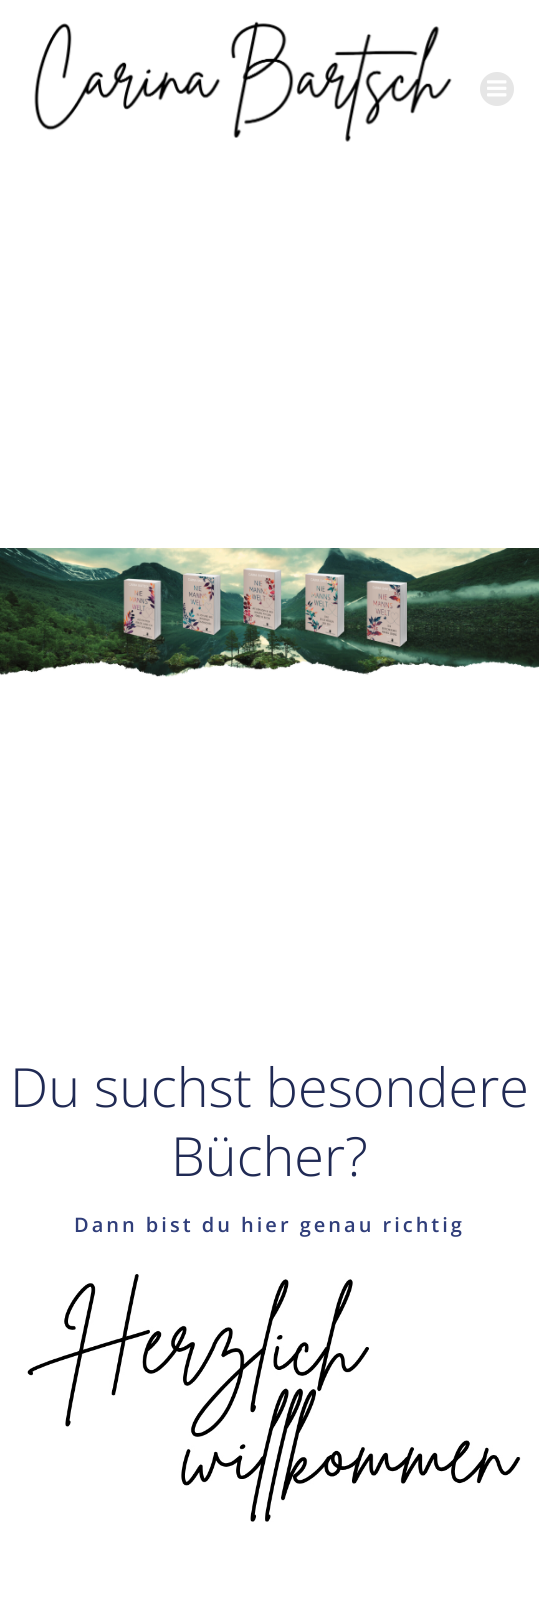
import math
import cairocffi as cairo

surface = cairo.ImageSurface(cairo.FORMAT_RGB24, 539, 1610)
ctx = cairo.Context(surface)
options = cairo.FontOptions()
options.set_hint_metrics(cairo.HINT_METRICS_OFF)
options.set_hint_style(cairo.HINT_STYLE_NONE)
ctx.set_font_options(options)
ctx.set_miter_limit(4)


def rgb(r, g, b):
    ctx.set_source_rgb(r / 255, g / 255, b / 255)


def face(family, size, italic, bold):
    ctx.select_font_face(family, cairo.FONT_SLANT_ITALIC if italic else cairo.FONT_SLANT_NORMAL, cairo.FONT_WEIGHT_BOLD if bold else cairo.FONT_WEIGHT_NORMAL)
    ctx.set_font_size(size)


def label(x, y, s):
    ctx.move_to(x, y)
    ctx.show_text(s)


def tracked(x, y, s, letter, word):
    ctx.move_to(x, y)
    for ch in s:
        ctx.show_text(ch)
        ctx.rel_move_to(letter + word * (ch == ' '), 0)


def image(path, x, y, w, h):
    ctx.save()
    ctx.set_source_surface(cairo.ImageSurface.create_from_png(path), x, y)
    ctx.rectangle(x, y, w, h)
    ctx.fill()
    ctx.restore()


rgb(255, 255, 255)
ctx.paint()
image('image0.png', 34, 21, 418, 121)
rgb(230, 230, 230)
ctx.arc(497, 89, 17, 0, 2 * math.pi)
ctx.fill()
image('image1.png', 487, 80, 20, 17)
image('image2.png', 0, 548, 539, 129)
face('Open Sans Light', 54, 0, 0)
rgb(32, 42, 84)
label(10, 1107, 'Du suchst besondere')
label(171, 1176, 'Bücher?')
face('Open Sans SemiBold', 20, 0, 0)
rgb(48, 62, 122)
tracked(74, 1232, 'Dann bist du hier genau richtig', 3, 0)
image('image3.png', 27, 1274, 494, 248)
surface.write_to_png('render.png')
